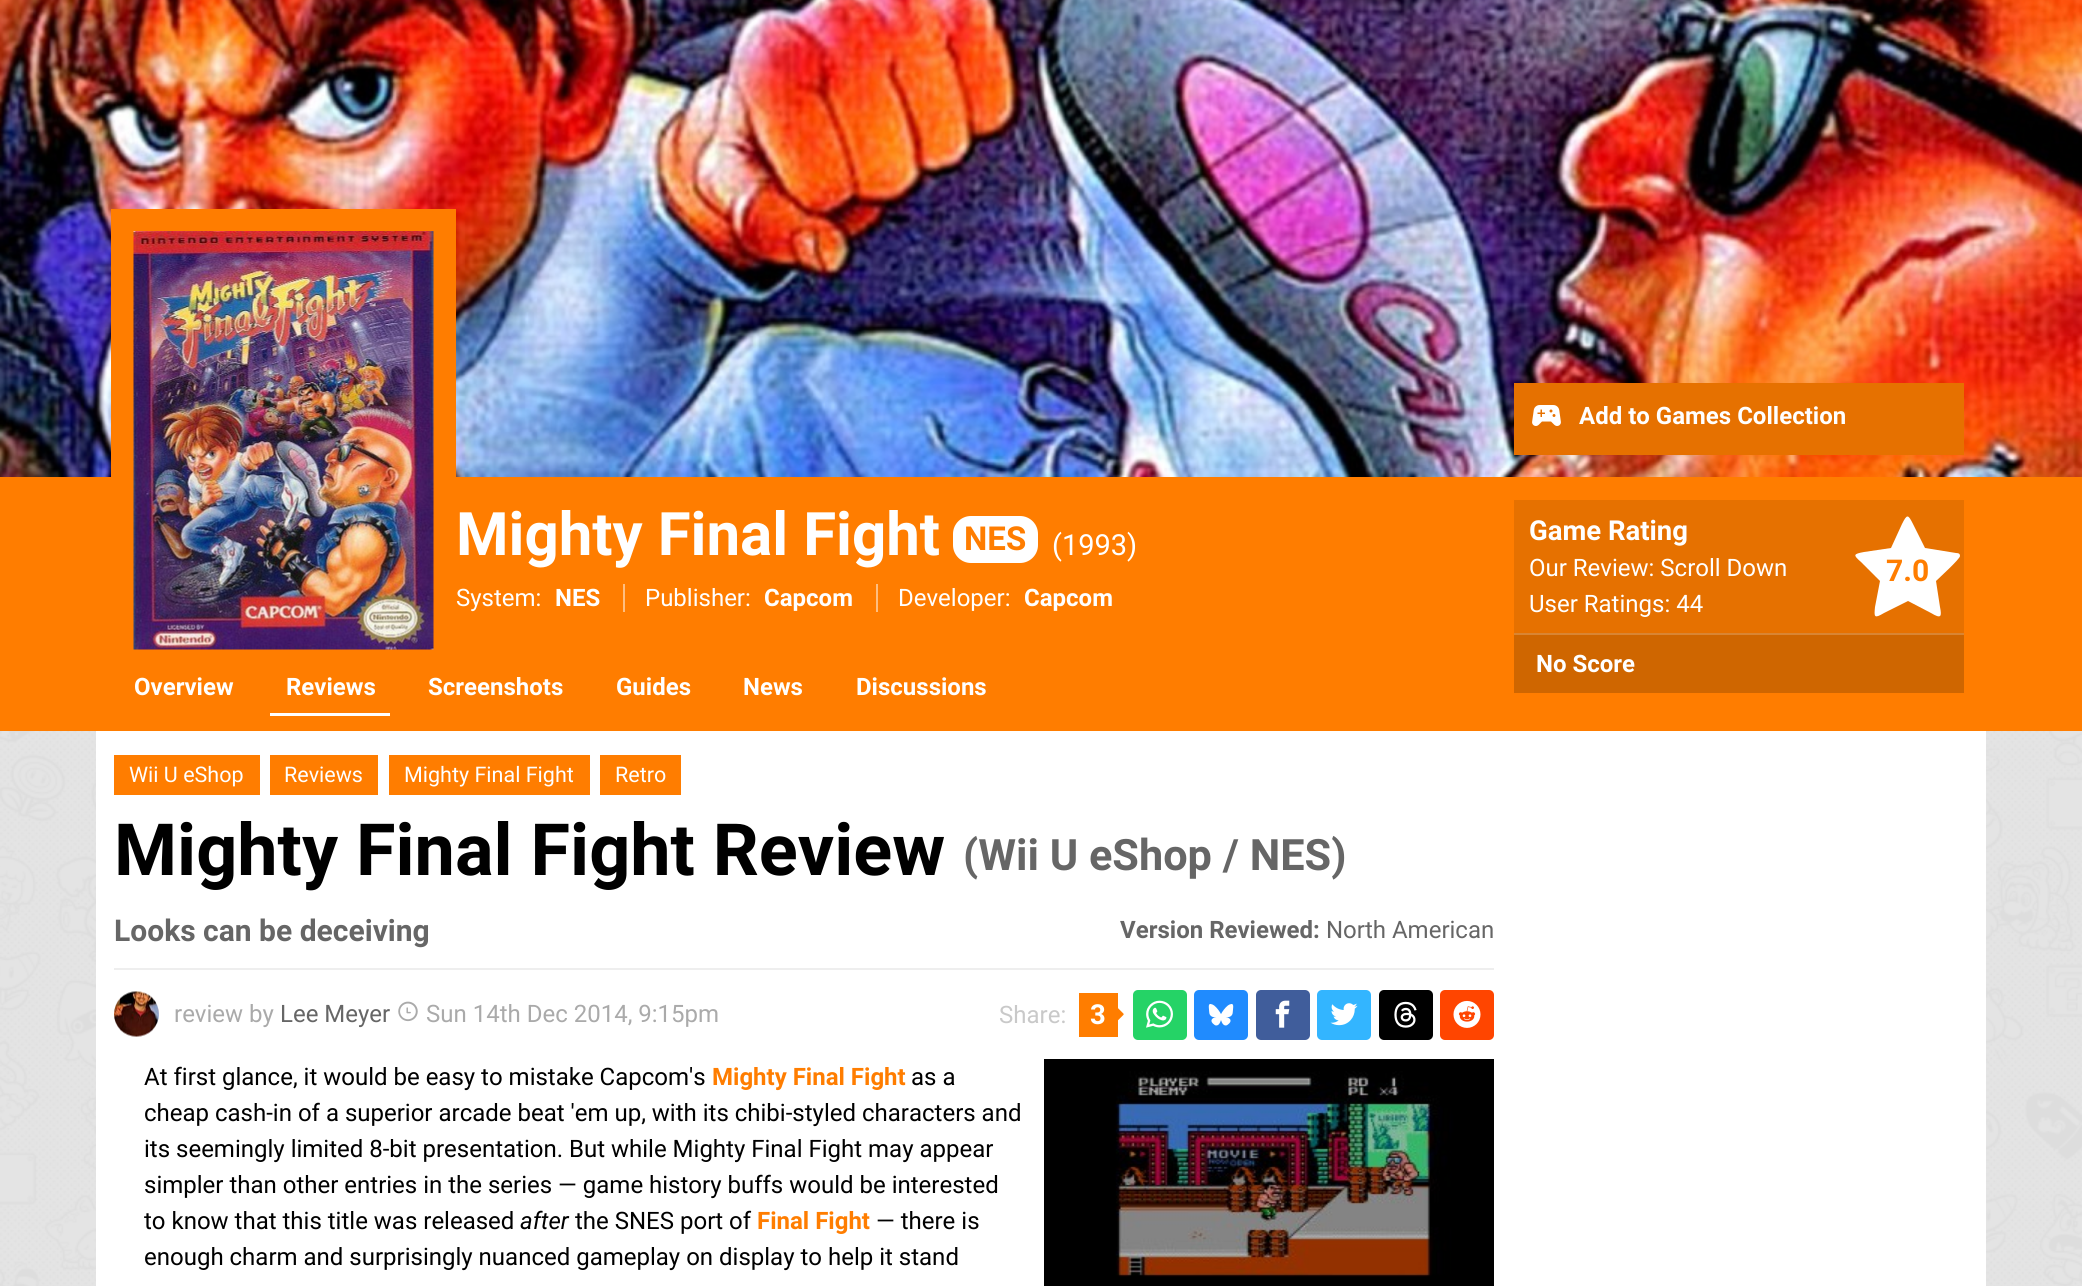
import math
import cairocffi as cairo

surface = cairo.ImageSurface(cairo.FORMAT_RGB24, 2082, 1286)
ctx = cairo.Context(surface)
options = cairo.FontOptions()
options.set_hint_metrics(cairo.HINT_METRICS_OFF)
options.set_hint_style(cairo.HINT_STYLE_NONE)
ctx.set_font_options(options)
ctx.set_miter_limit(4)


def rgb(r, g, b):
    ctx.set_source_rgb(r / 255, g / 255, b / 255)


def face(family, size, italic, bold):
    ctx.select_font_face(family, cairo.FONT_SLANT_ITALIC if italic else cairo.FONT_SLANT_NORMAL, cairo.FONT_WEIGHT_BOLD if bold else cairo.FONT_WEIGHT_NORMAL)
    ctx.set_font_size(size)


def label(x, y, s):
    ctx.move_to(x, y)
    ctx.show_text(s)


def rect(x, y, w, h):
    ctx.rectangle(x, y, w, h)
    ctx.fill()


def rrect(x, y, w, h, r):
    ctx.new_sub_path()
    for i, (u, v) in enumerate([(x + w - r, y + h - r), (x + r, y + h - r), (x + r, y + r), (x + w - r, y + r)]):
        ctx.arc(u, v, r, i * math.pi / 2, (i + 1) * math.pi / 2)
    ctx.close_path()


def image(path, x, y, w, h):
    ctx.save()
    ctx.set_source_surface(cairo.ImageSurface.create_from_png(path), x, y)
    ctx.rectangle(x, y, w, h)
    ctx.fill()
    ctx.restore()


rgb(221, 221, 221)
ctx.paint()
image('image0.png', 0, 731, 2082, 555)
image('image1.png', 0, 0, 2082, 477)
rgb(255, 125, 0)
rect(0, 477, 2082, 254)
rgb(230, 113, 0)
rect(1514, 383, 450, 72)
image('image2.png', 1532, 405, 29, 21)
face('Roboto', 24, 0, 1)
rgb(255, 255, 255)
label(1579, 424, 'Add to Games Collection')
rgb(255, 125, 0)
rect(111, 209, 345, 268)
image('image3.png', 133, 231, 301, 419)
face('Roboto', 60, 0, 1)
rgb(255, 255, 255)
label(456, 555, 'Mighty Final Fight')
rrect(953, 516, 85, 47, 18)
ctx.fill()
face('Roboto', 33, 0, 1)
rgb(255, 125, 0)
label(964, 550, 'NES')
face('Roboto', 29, 0, 0)
rgb(255, 255, 255)
label(1052, 555, '(1993)')
face('Roboto', 24, 0, 0)
label(456, 606, 'System:')
face('Roboto', 24, 0, 1)
label(555, 606, 'NES')
rgb(255, 190, 128)
rect(623, 584, 2, 28)
face('Roboto', 24, 0, 0)
rgb(255, 255, 255)
label(645, 606, 'Publisher:')
face('Roboto', 24, 0, 1)
label(764, 606, 'Capcom')
rgb(255, 190, 128)
rect(876, 584, 2, 28)
face('Roboto', 24, 0, 0)
rgb(255, 255, 255)
label(898, 606, 'Developer:')
face('Roboto', 24, 0, 1)
label(1024, 606, 'Capcom')
rgb(230, 113, 0)
rect(1514, 500, 450, 133)
face('Roboto', 27.5, 0, 1)
rgb(255, 255, 255)
label(1529, 540, 'Game Rating')
face('Roboto', 24, 0, 0)
label(1529, 576, 'Our Review: Scroll Down')
ctx.new_path()
ctx.move_to(1960, 556)
ctx.curve_to(1960, 559, 1939, 578, 1936, 581)
ctx.line_to(1940, 607)
ctx.curve_to(1942, 617, 1941, 619, 1931, 613)
ctx.line_to(1908, 601)
ctx.line_to(1884, 613)
ctx.curve_to(1874, 619, 1874, 617, 1875, 607)
ctx.line_to(1880, 581)
ctx.line_to(1861, 562)
ctx.curve_to(1853, 555, 1853, 554, 1864, 552)
ctx.line_to(1891, 548)
ctx.line_to(1902, 524)
ctx.curve_to(1907, 514, 1908, 514, 1913, 524)
ctx.line_to(1925, 548)
ctx.line_to(1956, 553)
ctx.curve_to(1959, 553, 1960, 554, 1960, 556)
ctx.close_path()
ctx.fill()
face('Roboto', 30, 0, 1)
rgb(255, 125, 0)
label(1886, 581, '7.0')
face('Roboto', 24, 0, 0)
rgb(255, 255, 255)
label(1529, 612, 'User Ratings: 44')
rgb(207, 102, 0)
rect(1514, 635, 450, 58)
rgb(217, 133, 51)
rect(1514, 633, 450, 2)
face('Roboto', 24, 0, 1)
rgb(255, 255, 255)
label(1536, 672, 'No Score')
label(134, 695, 'Overview')
rect(270, 713, 120, 3)
label(286, 695, 'Reviews')
label(428, 695, 'Screenshots')
label(616, 695, 'Guides')
label(743, 695, 'News')
label(856, 695, 'Discussions')
rect(96, 731, 1890, 555)
rgb(238, 238, 238)
rect(114, 968, 1380, 2)
rgb(255, 125, 0)
rect(114, 755, 146, 40)
face('Roboto', 21.5, 0, 0)
rgb(255, 255, 255)
label(129, 782, 'Wii U eShop')
rgb(255, 125, 0)
rect(270, 755, 108, 40)
rgb(255, 255, 255)
label(284, 782, 'Reviews')
rgb(255, 125, 0)
rect(389, 755, 201, 40)
rgb(255, 255, 255)
label(404, 782, 'Mighty Final Fight')
rgb(255, 125, 0)
rect(600, 755, 81, 40)
rgb(255, 255, 255)
label(615, 782, 'Retro')
face('Roboto', 72, 0, 1)
rgb(0, 0, 0)
label(114, 875, 'Mighty Final Fight Review')
face('Roboto', 43.25, 0, 1)
rgb(102, 102, 102)
label(963, 870, '(Wii U eShop / NES)')
face('Roboto', 30, 0, 1)
label(114, 941, 'Looks can be deceiving')
face('Roboto', 24, 0, 1)
label(1120, 938, 'Version Reviewed:')
face('Roboto', 24, 0, 0)
label(1326, 938, 'North American')
image('image4.png', 114, 991, 45, 46)
rgb(170, 170, 170)
label(174, 1022, 'review by')
rgb(102, 102, 102)
label(280, 1022, 'Lee Meyer')
image('image5.png', 398, 1001, 20, 21)
rgb(170, 170, 170)
label(426, 1022, 'Sun 14th Dec 2014, 9:15pm')
rgb(201, 201, 201)
label(999, 1023, 'Share:')
rgb(255, 125, 0)
rect(1079, 993, 39, 44)
face('Roboto', 27.5, 0, 1)
rgb(255, 255, 255)
label(1090, 1024, '3')
image('image6.png', 1118, 1008, 6, 13)
rgb(37, 211, 102)
rrect(1133, 990, 54, 50, 5)
ctx.fill()
image('image7.png', 1146, 1000, 27, 28)
rgb(32, 139, 254)
rrect(1194, 990, 54, 50, 5)
ctx.fill()
image('image8.png', 1208, 1004, 26, 22)
rgb(64, 93, 155)
rrect(1256, 990, 54, 50, 5)
ctx.fill()
image('image9.png', 1275, 1000, 15, 28)
rgb(51, 181, 255)
rrect(1317, 990, 54, 50, 5)
ctx.fill()
image('image10.png', 1330, 1003, 28, 23)
rgb(0, 0, 0)
rrect(1379, 990, 54, 50, 5)
ctx.fill()
image('image11.png', 1394, 1001, 23, 27)
rgb(255, 69, 0)
rrect(1440, 990, 54, 50, 5)
ctx.fill()
image('image12.png', 1453, 1000, 28, 28)
face('Roboto', 24, 0, 0)
rgb(0, 0, 0)
label(144, 1085, 'At first glance, it would be easy to mistake Capcom\'s')
face('Roboto', 24, 0, 1)
rgb(255, 125, 0)
label(712, 1085, 'Mighty Final Fight')
face('Roboto', 24, 0, 0)
rgb(0, 0, 0)
label(911, 1085, 'as a')
label(144, 1121, 'cheap cash-in of a superior arcade beat \'em up, with its chibi-styled characters and')
label(144, 1157, 'its seemingly limited 8-bit presentation. But while Mighty Final Fight may appear')
label(144, 1193, 'simpler than other entries in the series — game history buffs would be interested')
label(144, 1229, 'to know that this title was released')
face('Roboto', 24, 1, 0)
label(520, 1229, 'after')
face('Roboto', 24, 0, 0)
label(575, 1229, 'the SNES port of')
face('Roboto', 24, 0, 1)
rgb(255, 125, 0)
label(757, 1229, 'Final Fight')
face('Roboto', 24, 0, 0)
rgb(0, 0, 0)
label(876, 1229, '— there is')
label(144, 1265, 'enough charm and surprisingly nuanced gameplay on display to help it stand')
image('image13.png', 1044, 1059, 450, 227)
surface.write_to_png('render.png')
